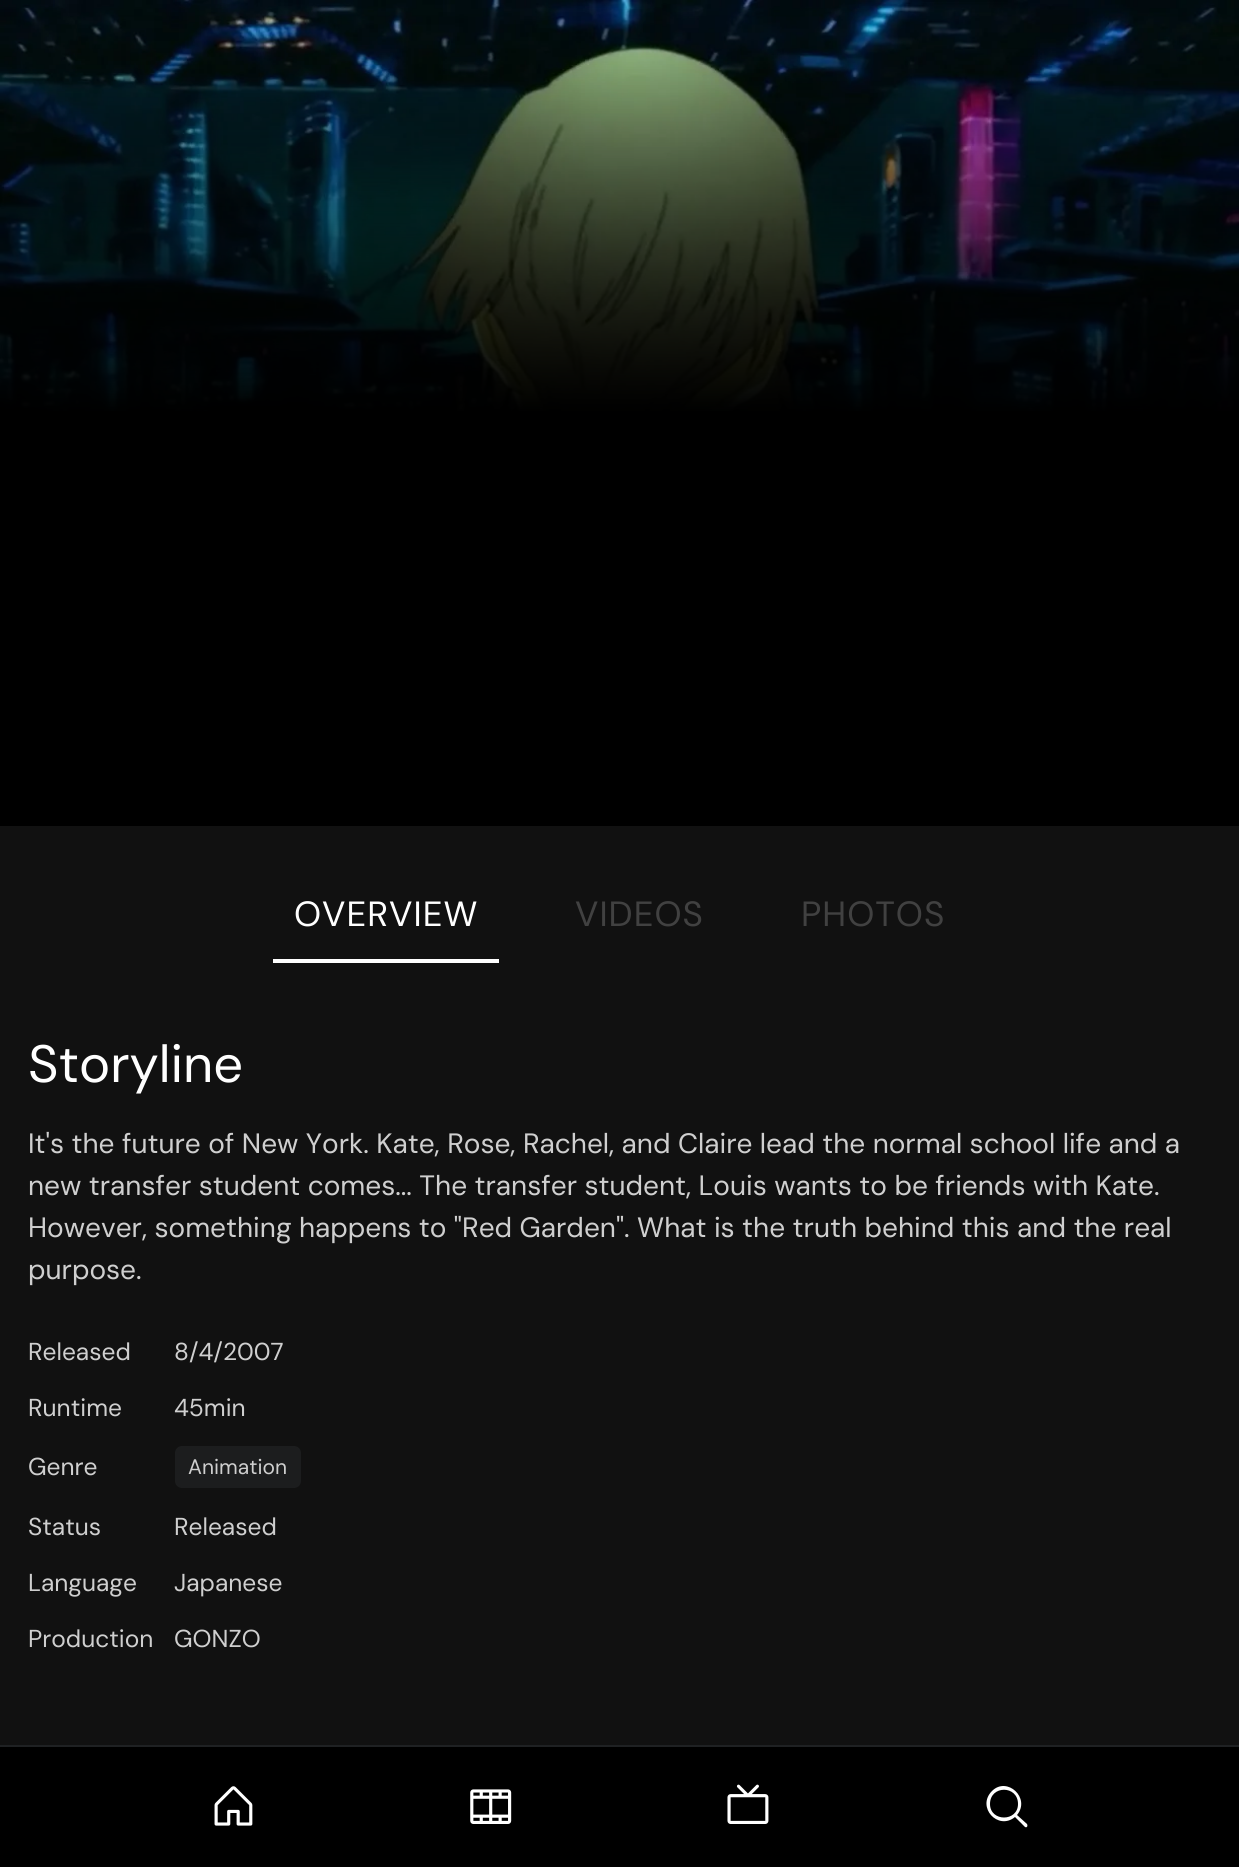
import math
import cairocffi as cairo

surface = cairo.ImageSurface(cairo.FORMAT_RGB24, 1239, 1867)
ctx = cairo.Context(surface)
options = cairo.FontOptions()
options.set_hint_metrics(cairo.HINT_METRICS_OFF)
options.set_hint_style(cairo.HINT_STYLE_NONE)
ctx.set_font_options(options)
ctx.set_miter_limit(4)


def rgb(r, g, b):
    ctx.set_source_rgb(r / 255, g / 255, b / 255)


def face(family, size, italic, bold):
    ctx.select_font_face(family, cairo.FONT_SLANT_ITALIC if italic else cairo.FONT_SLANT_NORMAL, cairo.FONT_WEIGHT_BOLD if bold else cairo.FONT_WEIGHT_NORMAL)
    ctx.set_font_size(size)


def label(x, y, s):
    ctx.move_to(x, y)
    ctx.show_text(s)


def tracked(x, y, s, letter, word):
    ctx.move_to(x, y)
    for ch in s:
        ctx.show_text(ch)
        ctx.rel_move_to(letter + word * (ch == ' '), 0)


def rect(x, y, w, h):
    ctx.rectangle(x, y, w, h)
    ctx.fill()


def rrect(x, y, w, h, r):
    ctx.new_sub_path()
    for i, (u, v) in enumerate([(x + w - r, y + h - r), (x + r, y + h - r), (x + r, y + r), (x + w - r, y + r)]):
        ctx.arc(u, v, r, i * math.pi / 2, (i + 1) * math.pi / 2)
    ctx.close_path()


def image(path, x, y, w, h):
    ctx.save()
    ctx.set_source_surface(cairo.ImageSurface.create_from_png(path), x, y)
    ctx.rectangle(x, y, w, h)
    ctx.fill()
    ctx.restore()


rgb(17, 17, 17)
ctx.paint()
image('image0.png', 0, 0, 1239, 411)
gradient = cairo.LinearGradient(620, 826, 620, 0)
gradient.add_color_stop_rgba(0, 0, 0, 0, 1)
gradient.add_color_stop_rgba(0.5, 0, 0, 0, 1)
gradient.add_color_stop_rgba(1, 0, 0, 0, 0)
ctx.set_source(gradient)
rect(0, 9, 1239, 817)
rgb(255, 255, 255)
rect(273, 959, 226, 4)
face('DM Sans', 35, 0, 0)
tracked(294, 926, 'OVERVIEW', 1, 0)
rgb(65, 65, 65)
tracked(575, 926, 'VIDEOS', 1, 0)
tracked(801, 926, 'PHOTOS', 1, 0)
face('DM Sans', 52.5, 0, 0)
rgb(255, 255, 255)
label(28, 1082, 'Storyline')
face('DM Sans', 28, 0, 0)
rgb(207, 207, 207)
label(28, 1153, 'It\'s the future of New York. Kate, Rose, Rachel, and Claire lead the normal school life and a')
label(28, 1195, 'new transfer student comes... The transfer student, Louis wants to be friends with Kate.')
label(28, 1237, 'However, something happens to "Red Garden". What is the truth behind this and the real')
label(28, 1279, 'purpose.')
face('DM Sans', 24.5, 0, 0)
label(28, 1360, 'Released')
label(174, 1360, '8/4/2007')
label(28, 1416, 'Runtime')
label(174, 1416, '45min')
label(28, 1475, 'Genre')
rgb(28, 29, 30)
rrect(175, 1446, 126, 42, 7)
ctx.fill()
face('DM Sans', 21, 0, 0)
rgb(207, 207, 207)
label(188, 1474, 'Animation')
face('DM Sans', 24.5, 0, 0)
label(28, 1535, 'Status')
label(174, 1535, 'Released')
label(28, 1591, 'Language')
label(174, 1591, 'Japanese')
label(28, 1647, 'Production')
label(174, 1647, 'GONZO')
rgb(0, 0, 0)
rect(0, 1747, 1239, 120)
rgb(31, 33, 35)
rect(0, 1745, 1239, 2)
image('image1.png', 214, 1786, 39, 40)
image('image2.png', 470, 1789, 42, 35)
image('image3.png', 727, 1784, 42, 40)
rgb(255, 255, 255)
ctx.new_path()
ctx.move_to(1027, 1824)
ctx.line_to(1017, 1815)
ctx.curve_to(1031, 1798, 1007, 1776, 992, 1791)
ctx.curve_to(976, 1807, 998, 1831, 1015, 1817)
ctx.line_to(1025, 1827)
ctx.curve_to(1027, 1828, 1028, 1826, 1027, 1824)
ctx.move_to(990, 1804)
ctx.curve_to(990, 1785, 1018, 1785, 1018, 1804)
ctx.curve_to(1018, 1822, 990, 1822, 990, 1804)
ctx.fill()
surface.write_to_png('render.png')
